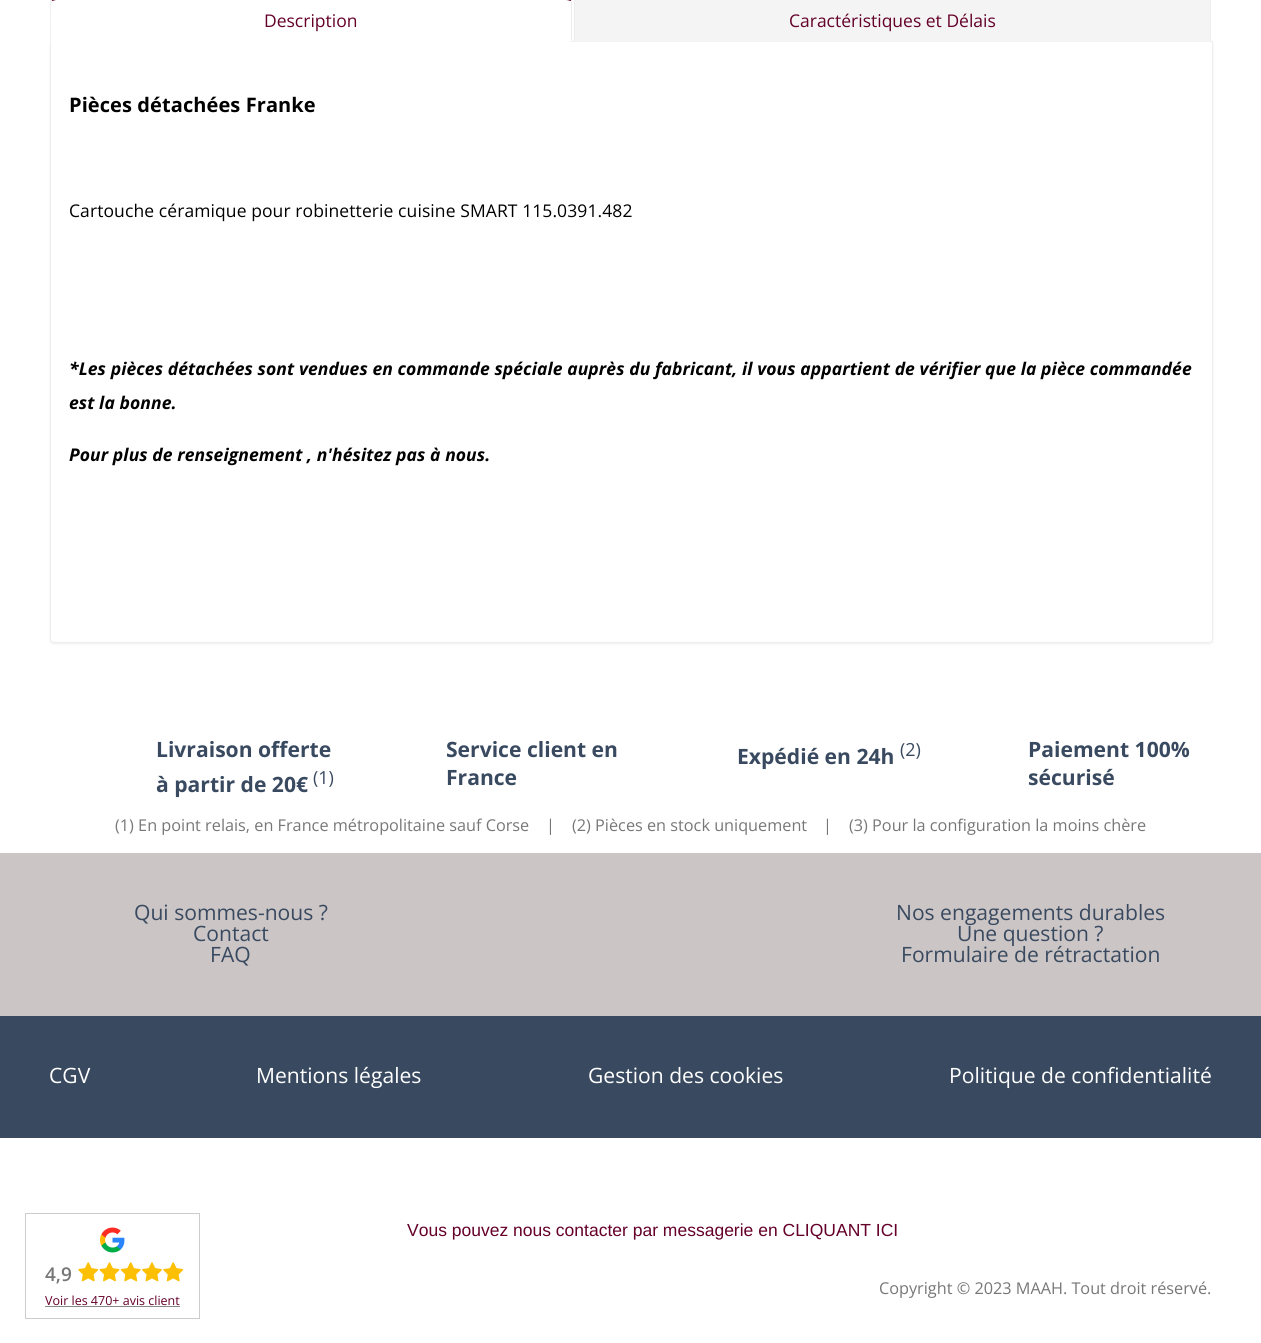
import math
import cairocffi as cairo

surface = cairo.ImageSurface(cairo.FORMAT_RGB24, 1261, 1343)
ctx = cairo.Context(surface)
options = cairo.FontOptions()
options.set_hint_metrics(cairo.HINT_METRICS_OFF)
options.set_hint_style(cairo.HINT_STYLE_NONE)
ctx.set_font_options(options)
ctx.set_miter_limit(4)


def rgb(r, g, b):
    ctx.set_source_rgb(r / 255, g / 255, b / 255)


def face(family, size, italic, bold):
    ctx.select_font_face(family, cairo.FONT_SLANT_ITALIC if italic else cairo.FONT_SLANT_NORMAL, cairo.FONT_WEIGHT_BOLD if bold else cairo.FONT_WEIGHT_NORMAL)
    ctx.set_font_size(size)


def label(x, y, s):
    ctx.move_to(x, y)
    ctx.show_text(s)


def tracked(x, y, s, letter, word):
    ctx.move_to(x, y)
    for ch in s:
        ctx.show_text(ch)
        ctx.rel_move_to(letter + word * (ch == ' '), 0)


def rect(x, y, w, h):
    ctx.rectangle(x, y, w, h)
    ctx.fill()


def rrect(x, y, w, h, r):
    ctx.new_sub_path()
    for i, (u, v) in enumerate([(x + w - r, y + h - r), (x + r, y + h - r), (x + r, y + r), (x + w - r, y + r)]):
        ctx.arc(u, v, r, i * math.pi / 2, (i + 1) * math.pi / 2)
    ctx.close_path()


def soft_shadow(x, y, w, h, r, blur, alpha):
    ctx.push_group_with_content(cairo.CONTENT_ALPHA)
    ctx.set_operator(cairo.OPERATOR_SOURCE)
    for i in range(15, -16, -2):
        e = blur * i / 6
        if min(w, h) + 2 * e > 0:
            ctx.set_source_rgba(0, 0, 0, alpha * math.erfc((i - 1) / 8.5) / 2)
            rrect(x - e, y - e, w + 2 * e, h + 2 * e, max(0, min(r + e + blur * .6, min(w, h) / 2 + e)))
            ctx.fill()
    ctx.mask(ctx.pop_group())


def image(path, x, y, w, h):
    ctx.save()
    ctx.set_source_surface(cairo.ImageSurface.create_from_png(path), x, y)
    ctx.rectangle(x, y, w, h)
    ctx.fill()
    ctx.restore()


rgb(255, 255, 255)
ctx.paint()
rgb(238, 238, 238)
soft_shadow(50, 43, 1163, 601, 4, 1, 1)
rgb(255, 255, 255)
ctx.new_path()
ctx.move_to(50.5, 41.5)
ctx.line_to(1212.5, 41.5)
ctx.line_to(1212.5, 639)
ctx.curve_to(1212.5, 641, 1211, 642.5, 1209, 642.5)
ctx.line_to(54, 642.5)
ctx.curve_to(52, 642.5, 50.5, 641, 50.5, 639)
ctx.close_path()
ctx.fill_preserve()
rgb(238, 238, 238)
ctx.set_line_width(1)
ctx.stroke()
rgb(255, 255, 255)
ctx.new_path()
ctx.move_to(56, 0)
ctx.line_to(566, 0)
ctx.curve_to(569, 0, 571, 1, 571, 2)
ctx.line_to(571, 42)
ctx.line_to(51, 42)
ctx.line_to(51, 2)
ctx.curve_to(51, 1, 53, 0, 56, 0)
ctx.close_path()
ctx.fill()
rgb(100, 0, 41)
ctx.new_path()
ctx.move_to(56, 0)
ctx.line_to(52, 1)
ctx.line_to(51, -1)
ctx.line_to(54, -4)
ctx.line_to(568, -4)
ctx.line_to(569, -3)
ctx.line_to(571, -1)
ctx.line_to(571, 1)
ctx.curve_to(570, 1, 568, 0, 566, 0)
ctx.close_path()
ctx.fill()
rgb(238, 238, 238)
ctx.new_path()
ctx.move_to(571, -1)
ctx.line_to(571, 1)
ctx.line_to(571, 42)
ctx.line_to(572, 42)
ctx.line_to(572, 2)
ctx.close_path()
ctx.fill()
ctx.new_path()
ctx.move_to(50, 2)
ctx.line_to(50, 42)
ctx.line_to(51, 42)
ctx.curve_to(51, 37, 50, 2, 52, 1)
ctx.line_to(51, -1)
ctx.close_path()
ctx.fill()
face('Open Sans', 17.5, 0, 0)
rgb(100, 0, 41)
label(264, 27, 'Description')
rgb(244, 244, 244)
ctx.new_path()
ctx.move_to(580, 0)
ctx.line_to(1205, 0)
ctx.curve_to(1208, 0, 1210, 1, 1210, 2)
ctx.line_to(1210, 42)
ctx.line_to(575, 42)
ctx.line_to(575, 2)
ctx.curve_to(575, 1, 577, 0, 580, 0)
ctx.close_path()
ctx.fill()
rgb(238, 238, 238)
ctx.set_fill_rule(cairo.FILL_RULE_EVEN_ODD)
ctx.new_path()
ctx.move_to(580, -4)
ctx.line_to(1205, -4)
ctx.curve_to(1208, -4, 1211, -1, 1211, 2)
ctx.line_to(1211, 42)
ctx.line_to(574, 42)
ctx.line_to(574, 2)
ctx.curve_to(574, -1, 577, -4, 580, -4)
ctx.close_path()
ctx.move_to(580, 0)
ctx.line_to(1205, 0)
ctx.curve_to(1208, 0, 1210, 1, 1210, 2)
ctx.line_to(1210, 42)
ctx.line_to(575, 42)
ctx.line_to(575, 2)
ctx.curve_to(575, 1, 577, 0, 580, 0)
ctx.close_path()
ctx.fill()
rgb(100, 0, 41)
label(789, 27, 'Caractéristiques et Délais')
face('Open Sans', 20, 0, 1)
rgb(0, 0, 0)
tracked(69, 112, 'Pièces détachées Franke', 0.09, 0)
face('Open Sans', 17.5, 0, 0)
tracked(69, 217, 'Cartouche céramique pour robinetterie cuisine SMART 115.0391.482', 0.09, 0)
face('Open Sans', 17.5, 1, 1)
tracked(69, 375, '*Les pièces détachées sont vendues en commande spéciale auprès du fabricant, il vous appartient de vérifier que la pièce commandée', 0.09, 0)
tracked(69, 409, 'est la bonne.', 0.09, 0)
tracked(69, 461, 'Pour plus de renseignement , n\'hésitez pas à nous.', 0.09, 0)
face('Open Sans', 21.1, 0, 1)
rgb(57, 74, 96)
label(156, 757, 'Livraison offerte')
label(156, 792, 'à partir de 20€')
face('Open Sans', 18, 0, 0)
label(313, 784, '(1)')
face('Open Sans', 21.1, 0, 1)
label(446, 757, 'Service client en')
label(446, 785, 'France')
label(737, 764, 'Expédié en 24h')
face('Open Sans', 18, 0, 0)
label(900, 756, '(2)')
face('Open Sans', 21.1, 0, 1)
label(1028, 757, 'Paiement 100%')
label(1028, 785, 'sécurisé')
face('Open Sans', 16.25, 0, 0)
rgb(119, 119, 119)
label(115, 831, '(1) En point relais, en France métropolitaine sauf Corse')
label(546, 831, '|')
label(572, 831, '(2) Pièces en stock uniquement')
label(823, 831, '|')
label(849, 831, '(3) Pour la configuration la moins chère')
rgb(203, 197, 197)
rect(0, 853, 1261, 163)
face('Open Sans', 21.1, 0, 0)
rgb(57, 74, 96)
label(134, 920, 'Qui sommes-nous ?')
label(193, 941, 'Contact')
label(210, 962, 'FAQ')
label(896, 920, 'Nos engagements durables')
label(957, 941, 'Une question ?')
label(901, 962, 'Formulaire de rétractation')
rect(0, 1016, 1261, 122)
rgb(255, 255, 255)
label(49, 1083, 'CGV')
label(256, 1083, 'Mentions légales')
label(588, 1083, 'Gestion des cookies')
label(949, 1083, 'Politique de confidentialité')
face('Liberation Sans', 17.5, 0, 0)
rgb(100, 0, 41)
label(407, 1236, 'Vous pouvez nous contacter par messagerie en CLIQUANT ICI')
face('Open Sans', 16.25, 0, 0)
rgb(119, 119, 119)
label(879, 1294, 'Copyright © 2023 MAAH. Tout droit réservé.')
ctx.rectangle(25.5, 1213.5, 174, 105)
rgb(204, 204, 204)
ctx.stroke()
image('image0.png', 100, 1227, 25, 26)
face('Open Sans SemiBold', 19, 0, 0)
rgb(119, 119, 119)
label(45, 1281, '4,9')
image('image1.png', 78, 1262, 21, 20)
image('image2.png', 99, 1262, 21, 20)
image('image3.png', 120, 1262, 21, 20)
image('image4.png', 142, 1262, 20, 20)
image('image1.png', 163, 1262, 21, 20)
face('Open Sans', 12.5, 0, 0)
rgb(100, 0, 41)
label(45, 1305, 'Voir les 470+ avis client')
rgb(136, 136, 136)
rect(45, 1306, 135, 1)
surface.write_to_png('render.png')
